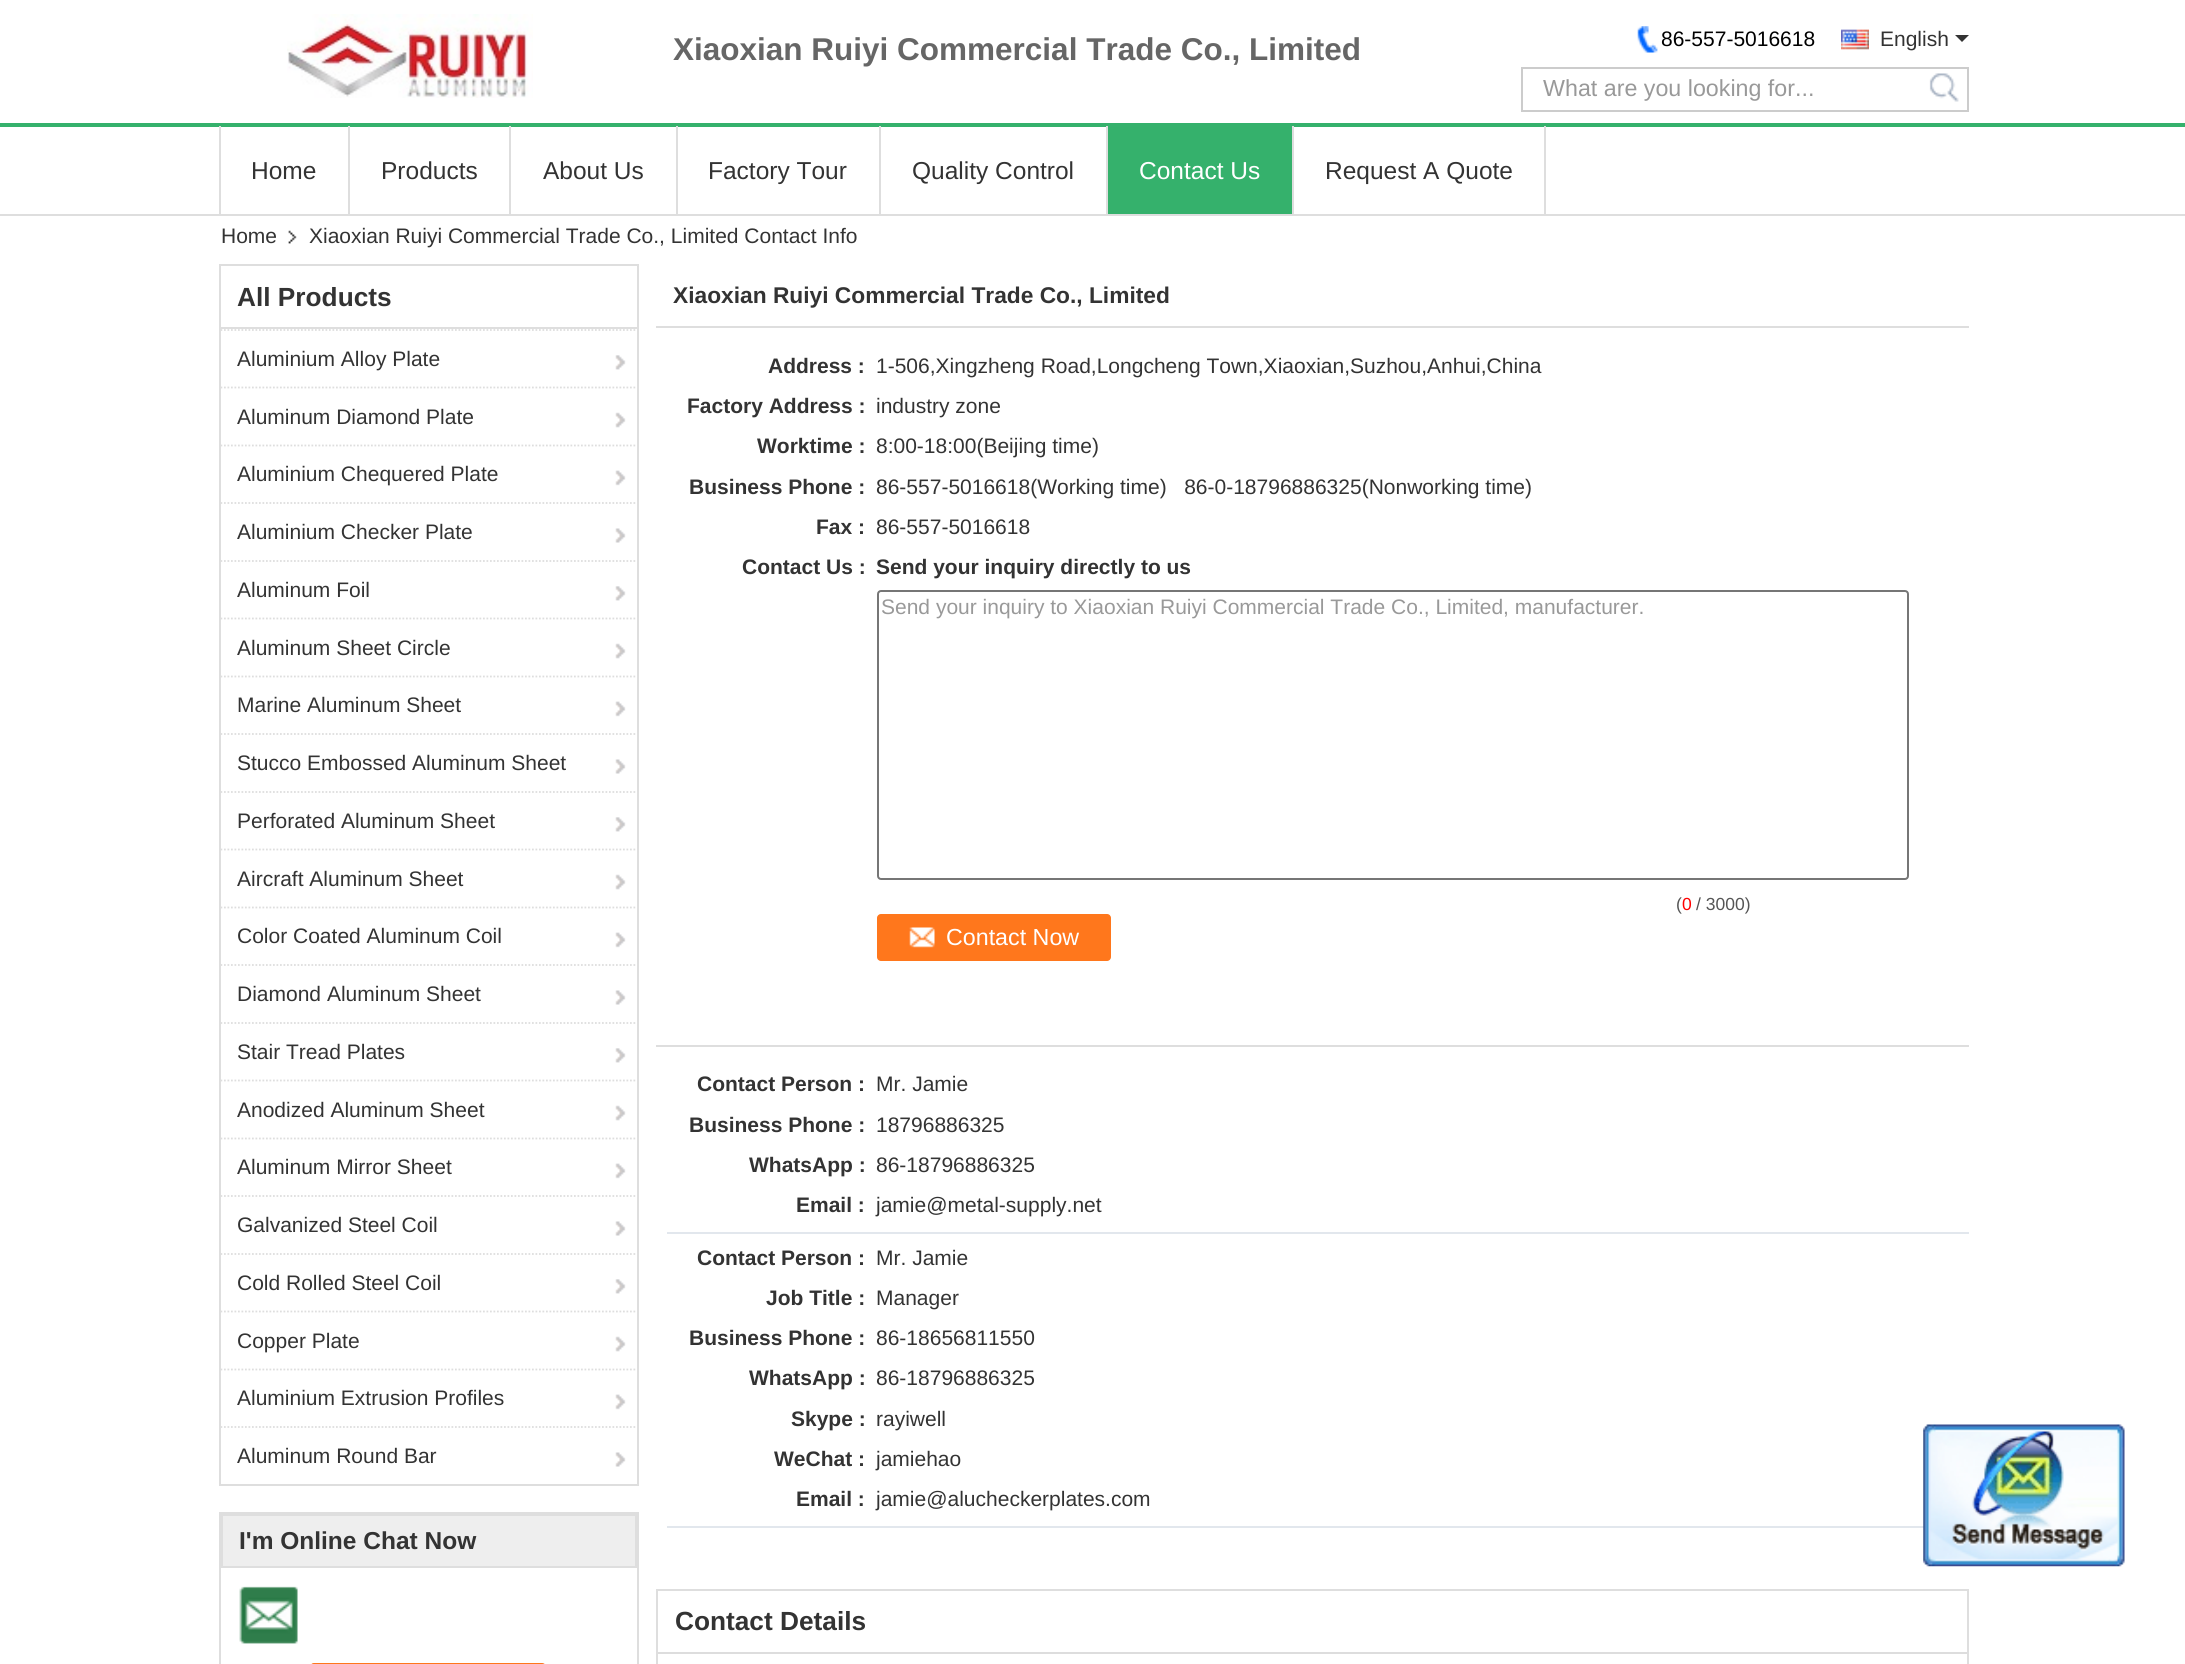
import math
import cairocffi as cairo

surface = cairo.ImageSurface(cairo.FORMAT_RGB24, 2185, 1664)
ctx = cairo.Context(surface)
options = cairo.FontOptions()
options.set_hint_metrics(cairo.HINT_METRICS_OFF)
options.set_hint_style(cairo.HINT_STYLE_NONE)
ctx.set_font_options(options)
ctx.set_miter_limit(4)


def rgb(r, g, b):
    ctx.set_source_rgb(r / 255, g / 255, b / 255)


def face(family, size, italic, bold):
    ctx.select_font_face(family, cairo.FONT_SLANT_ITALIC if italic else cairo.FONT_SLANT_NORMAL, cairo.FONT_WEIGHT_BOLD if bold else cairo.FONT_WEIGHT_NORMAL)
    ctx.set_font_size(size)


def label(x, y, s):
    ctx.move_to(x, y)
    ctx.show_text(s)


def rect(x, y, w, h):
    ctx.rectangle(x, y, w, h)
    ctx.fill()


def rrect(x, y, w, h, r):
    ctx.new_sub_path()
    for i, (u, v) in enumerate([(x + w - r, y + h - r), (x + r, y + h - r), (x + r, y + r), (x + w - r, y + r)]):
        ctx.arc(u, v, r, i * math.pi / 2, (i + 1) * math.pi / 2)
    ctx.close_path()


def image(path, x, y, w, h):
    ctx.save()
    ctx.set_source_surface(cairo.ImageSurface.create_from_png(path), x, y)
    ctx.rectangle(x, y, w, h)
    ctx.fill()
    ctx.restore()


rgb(255, 255, 255)
ctx.paint()
rgb(53, 177, 108)
rect(0, 123, 2185, 4)
image('image0.png', 287, 14, 246, 84)
face('Liberation Sans', 31.5, 0, 1)
rgb(102, 102, 102)
label(673, 60, 'Xiaoxian Ruiyi Commercial Trade Co., Limited')
image('image1.png', 1637, 26, 21, 27)
face('Liberation Sans', 21, 0, 0)
rgb(0, 0, 0)
label(1661, 46, '86-557-5016618')
image('image2.png', 1841, 29, 28, 21)
rgb(51, 51, 51)
label(1880, 46, 'English')
ctx.new_path()
ctx.move_to(1955, 35)
ctx.line_to(1969, 35)
ctx.line_to(1962, 42)
ctx.close_path()
ctx.fill()
rgb(204, 204, 204)
rect(1521, 67, 448, 2)
rect(1521, 110, 404, 2)
rect(1521, 67, 2, 45)
face('Liberation Sans', 23.25, 0, 0)
rgb(153, 153, 153)
label(1543, 96, 'What are you looking for...')
image('image3.png', 1929, 73, 30, 29)
rgb(204, 204, 204)
rect(1967, 67, 2, 45)
rect(1925, 110, 44, 2)
rgb(222, 222, 222)
rect(0, 214, 2185, 2)
rect(219, 126, 2, 88)
face('Liberation Sans', 24.5, 0, 0)
rgb(51, 51, 51)
label(251, 179, 'Home')
rgb(222, 222, 222)
rect(348, 126, 2, 88)
rgb(51, 51, 51)
label(381, 179, 'Products')
rgb(222, 222, 222)
rect(509, 126, 2, 88)
rgb(51, 51, 51)
label(543, 179, 'About Us')
rgb(222, 222, 222)
rect(676, 126, 2, 88)
rgb(51, 51, 51)
label(708, 179, 'Factory Tour')
rgb(222, 222, 222)
rect(879, 126, 2, 88)
rgb(51, 51, 51)
label(912, 179, 'Quality Control')
rgb(53, 177, 108)
rect(1108, 127, 184, 87)
rgb(222, 222, 222)
rect(1106, 126, 2, 88)
rgb(255, 255, 255)
label(1139, 179, 'Contact Us')
rgb(222, 222, 222)
rect(1544, 126, 2, 88)
rect(1292, 126, 2, 88)
rgb(51, 51, 51)
label(1325, 179, 'Request A Quote')
image('image4.png', 288, 230, 9, 14)
face('Liberation Sans', 21, 0, 0)
label(221, 243, 'Home')
label(309, 243, 'Xiaoxian Ruiyi Commercial Trade Co., Limited Contact Info')
ctx.rectangle(220, 265, 418, 1220)
rgb(222, 222, 222)
ctx.stroke()
rect(221, 327, 416, 2)
face('Liberation Sans', 26.25, 0, 1)
rgb(51, 51, 51)
label(237, 306, 'All Products')
image('image5.png', 615, 355, 11, 15)
ctx.new_path()
ctx.move_to(220.5, 330)
ctx.line_to(637, 330)
rgb(222, 222, 222)
ctx.set_line_width(1.8)
ctx.set_dash([1.75, 1.75])
ctx.stroke()
face('Liberation Sans', 21, 0, 0)
rgb(51, 51, 51)
label(237, 366, 'Aluminium Alloy Plate')
image('image6.png', 615, 412, 11, 16)
ctx.new_path()
ctx.move_to(220.5, 387.5)
ctx.line_to(637, 387.5)
rgb(222, 222, 222)
ctx.stroke()
rgb(51, 51, 51)
label(237, 424, 'Aluminum Diamond Plate')
image('image7.png', 615, 470, 11, 16)
ctx.new_path()
ctx.move_to(220.5, 445.5)
ctx.line_to(637, 445.5)
rgb(222, 222, 222)
ctx.stroke()
rgb(51, 51, 51)
label(237, 481, 'Aluminium Chequered Plate')
image('image8.png', 615, 528, 11, 15)
ctx.new_path()
ctx.move_to(220.5, 503)
ctx.line_to(637, 503)
rgb(222, 222, 222)
ctx.stroke()
rgb(51, 51, 51)
label(237, 539, 'Aluminium Checker Plate')
image('image5.png', 615, 586, 11, 15)
ctx.new_path()
ctx.move_to(220.5, 561)
ctx.line_to(637, 561)
rgb(222, 222, 222)
ctx.stroke()
rgb(51, 51, 51)
label(237, 597, 'Aluminum Foil')
image('image6.png', 615, 643, 11, 16)
ctx.new_path()
ctx.move_to(220.5, 618.5)
ctx.line_to(637, 618.5)
rgb(222, 222, 222)
ctx.stroke()
rgb(51, 51, 51)
label(237, 655, 'Aluminum Sheet Circle')
image('image7.png', 615, 701, 11, 16)
ctx.new_path()
ctx.move_to(220.5, 676.5)
ctx.line_to(637, 676.5)
rgb(222, 222, 222)
ctx.stroke()
rgb(51, 51, 51)
label(237, 712, 'Marine Aluminum Sheet')
image('image8.png', 615, 759, 11, 15)
ctx.new_path()
ctx.move_to(220.5, 734)
ctx.line_to(637, 734)
rgb(222, 222, 222)
ctx.stroke()
rgb(51, 51, 51)
label(237, 770, 'Stucco Embossed Aluminum Sheet')
image('image5.png', 615, 817, 11, 15)
ctx.new_path()
ctx.move_to(220.5, 792)
ctx.line_to(637, 792)
rgb(222, 222, 222)
ctx.stroke()
rgb(51, 51, 51)
label(237, 828, 'Perforated Aluminum Sheet')
image('image6.png', 615, 874, 11, 16)
ctx.new_path()
ctx.move_to(220.5, 849.5)
ctx.line_to(637, 849.5)
rgb(222, 222, 222)
ctx.stroke()
rgb(51, 51, 51)
label(237, 886, 'Aircraft Aluminum Sheet')
image('image7.png', 615, 932, 11, 16)
ctx.new_path()
ctx.move_to(220.5, 907.5)
ctx.line_to(637, 907.5)
rgb(222, 222, 222)
ctx.stroke()
rgb(51, 51, 51)
label(237, 943, 'Color Coated Aluminum Coil')
image('image8.png', 615, 990, 11, 15)
ctx.new_path()
ctx.move_to(220.5, 965)
ctx.line_to(637, 965)
rgb(222, 222, 222)
ctx.stroke()
rgb(51, 51, 51)
label(237, 1001, 'Diamond Aluminum Sheet')
image('image5.png', 615, 1048, 11, 15)
ctx.new_path()
ctx.move_to(220.5, 1023)
ctx.line_to(637, 1023)
rgb(222, 222, 222)
ctx.stroke()
rgb(51, 51, 51)
label(237, 1059, 'Stair Tread Plates')
image('image6.png', 615, 1105, 11, 16)
ctx.new_path()
ctx.move_to(220.5, 1080.5)
ctx.line_to(637, 1080.5)
rgb(222, 222, 222)
ctx.stroke()
rgb(51, 51, 51)
label(237, 1117, 'Anodized Aluminum Sheet')
image('image7.png', 615, 1163, 11, 16)
ctx.new_path()
ctx.move_to(220.5, 1138.5)
ctx.line_to(637, 1138.5)
rgb(222, 222, 222)
ctx.stroke()
rgb(51, 51, 51)
label(237, 1174, 'Aluminum Mirror Sheet')
image('image8.png', 615, 1221, 11, 15)
ctx.new_path()
ctx.move_to(220.5, 1196)
ctx.line_to(637, 1196)
rgb(222, 222, 222)
ctx.stroke()
rgb(51, 51, 51)
label(237, 1232, 'Galvanized Steel Coil')
image('image5.png', 615, 1279, 11, 15)
ctx.new_path()
ctx.move_to(220.5, 1254)
ctx.line_to(637, 1254)
rgb(222, 222, 222)
ctx.stroke()
rgb(51, 51, 51)
label(237, 1290, 'Cold Rolled Steel Coil')
image('image6.png', 615, 1336, 11, 16)
ctx.new_path()
ctx.move_to(220.5, 1311.5)
ctx.line_to(637, 1311.5)
rgb(222, 222, 222)
ctx.stroke()
rgb(51, 51, 51)
label(237, 1348, 'Copper Plate')
image('image7.png', 615, 1394, 11, 16)
ctx.new_path()
ctx.move_to(220.5, 1369.5)
ctx.line_to(637, 1369.5)
rgb(222, 222, 222)
ctx.stroke()
rgb(51, 51, 51)
label(237, 1405, 'Aluminium Extrusion Profiles')
image('image8.png', 615, 1452, 11, 15)
ctx.new_path()
ctx.move_to(220.5, 1427)
ctx.line_to(637, 1427)
rgb(222, 222, 222)
ctx.stroke()
rgb(51, 51, 51)
label(237, 1463, 'Aluminum Round Bar')
ctx.rectangle(220, 1513, 418, 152)
rgb(222, 222, 222)
ctx.set_line_width(2)
ctx.set_dash([])
ctx.stroke()
rgb(238, 238, 238)
ctx.rectangle(222, 1515, 414, 52)
ctx.fill_preserve()
rgb(222, 222, 222)
ctx.stroke()
face('Liberation Sans', 24.5, 0, 1)
rgb(51, 51, 51)
label(239, 1549, 'I\'m Online Chat Now')
image('image9.png', 239, 1586, 59, 58)
rgb(255, 119, 28)
rrect(310, 1663, 236, 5, 4)
ctx.fill()
rgb(222, 222, 222)
rect(656, 326, 1313, 2)
face('Liberation Sans', 22.75, 0, 1)
rgb(51, 51, 51)
label(673, 303, 'Xiaoxian Ruiyi Commercial Trade Co., Limited')
face('Liberation Sans', 21, 0, 1)
label(768, 373, 'Address :')
face('Liberation Sans', 21, 0, 0)
label(876, 373, '1-506,Xingzheng Road,Longcheng Town,Xiaoxian,Suzhou,Anhui,China')
face('Liberation Sans', 21, 0, 1)
label(687, 413, 'Factory Address :')
face('Liberation Sans', 21, 0, 0)
label(876, 413, 'industry zone')
face('Liberation Sans', 21, 0, 1)
label(757, 453, 'Worktime :')
face('Liberation Sans', 21, 0, 0)
label(876, 453, '8:00-18:00(Beijing time)')
face('Liberation Sans', 21, 0, 1)
label(689, 494, 'Business Phone :')
face('Liberation Sans', 21, 0, 0)
label(876, 494, '86-557-5016618(Working time)   86-0-18796886325(Nonworking time)')
face('Liberation Sans', 21, 0, 1)
label(816, 534, 'Fax :')
face('Liberation Sans', 21, 0, 0)
label(876, 534, '86-557-5016618')
face('Liberation Sans', 21, 0, 1)
label(742, 574, 'Contact Us :')
label(876, 574, 'Send your inquiry directly to us')
rrect(878, 591, 1030, 288, 3)
rgb(118, 118, 118)
ctx.stroke()
face('Liberation Sans', 21, 0, 0)
rgb(153, 153, 153)
label(881, 614, 'Send your inquiry to Xiaoxian Ruiyi Commercial Trade Co., Limited, manufacturer.')
face('Liberation Sans', 17.5, 0, 0)
rgb(85, 85, 85)
label(1676, 910, '(')
rgb(255, 0, 0)
label(1682, 910, '0')
rgb(85, 85, 85)
label(1696, 910, '/ 3000)')
rgb(255, 119, 28)
rrect(877, 914, 234, 47, 4)
ctx.fill()
image('image10.png', 909, 927, 26, 21)
face('Liberation Sans', 23.25, 0, 0)
rgb(255, 255, 255)
label(946, 945, 'Contact Now')
rgb(222, 222, 222)
rect(656, 1045, 1313, 2)
face('Liberation Sans', 21, 0, 1)
rgb(51, 51, 51)
label(697, 1091, 'Contact Person :')
face('Liberation Sans', 21, 0, 0)
label(876, 1091, 'Mr. Jamie')
face('Liberation Sans', 21, 0, 1)
label(689, 1132, 'Business Phone :')
face('Liberation Sans', 21, 0, 0)
label(876, 1132, '18796886325')
face('Liberation Sans', 21, 0, 1)
label(749, 1172, 'WhatsApp :')
face('Liberation Sans', 21, 0, 0)
label(876, 1172, '86-18796886325')
face('Liberation Sans', 21, 0, 1)
label(796, 1212, 'Email :')
face('Liberation Sans', 21, 0, 0)
label(876, 1212, 'jamie@metal-supply.net')
rgb(226, 231, 237)
rect(667, 1232, 1302, 2)
face('Liberation Sans', 21, 0, 1)
rgb(51, 51, 51)
label(697, 1265, 'Contact Person :')
face('Liberation Sans', 21, 0, 0)
label(876, 1265, 'Mr. Jamie')
face('Liberation Sans', 21, 0, 1)
label(766, 1305, 'Job Title :')
face('Liberation Sans', 21, 0, 0)
label(876, 1305, 'Manager')
face('Liberation Sans', 21, 0, 1)
label(689, 1345, 'Business Phone :')
face('Liberation Sans', 21, 0, 0)
label(876, 1345, '86-18656811550')
face('Liberation Sans', 21, 0, 1)
label(749, 1385, 'WhatsApp :')
face('Liberation Sans', 21, 0, 0)
label(876, 1385, '86-18796886325')
face('Liberation Sans', 21, 0, 1)
label(791, 1426, 'Skype :')
face('Liberation Sans', 21, 0, 0)
label(876, 1426, 'rayiwell')
face('Liberation Sans', 21, 0, 1)
label(774, 1466, 'WeChat :')
face('Liberation Sans', 21, 0, 0)
label(876, 1466, 'jamiehao')
face('Liberation Sans', 21, 0, 1)
label(796, 1506, 'Email :')
face('Liberation Sans', 21, 0, 0)
label(876, 1506, 'jamie@alucheckerplates.com')
rgb(226, 231, 237)
rect(667, 1526, 1257, 2)
ctx.rectangle(657, 1590, 1311, 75)
rgb(222, 222, 222)
ctx.stroke()
rgb(221, 221, 221)
rect(658, 1652, 1309, 2)
face('Liberation Sans', 26.25, 0, 1)
rgb(51, 51, 51)
label(675, 1630, 'Contact Details')
image('image11.png', 1923, 1424, 202, 143)
surface.write_to_png('render.png')
